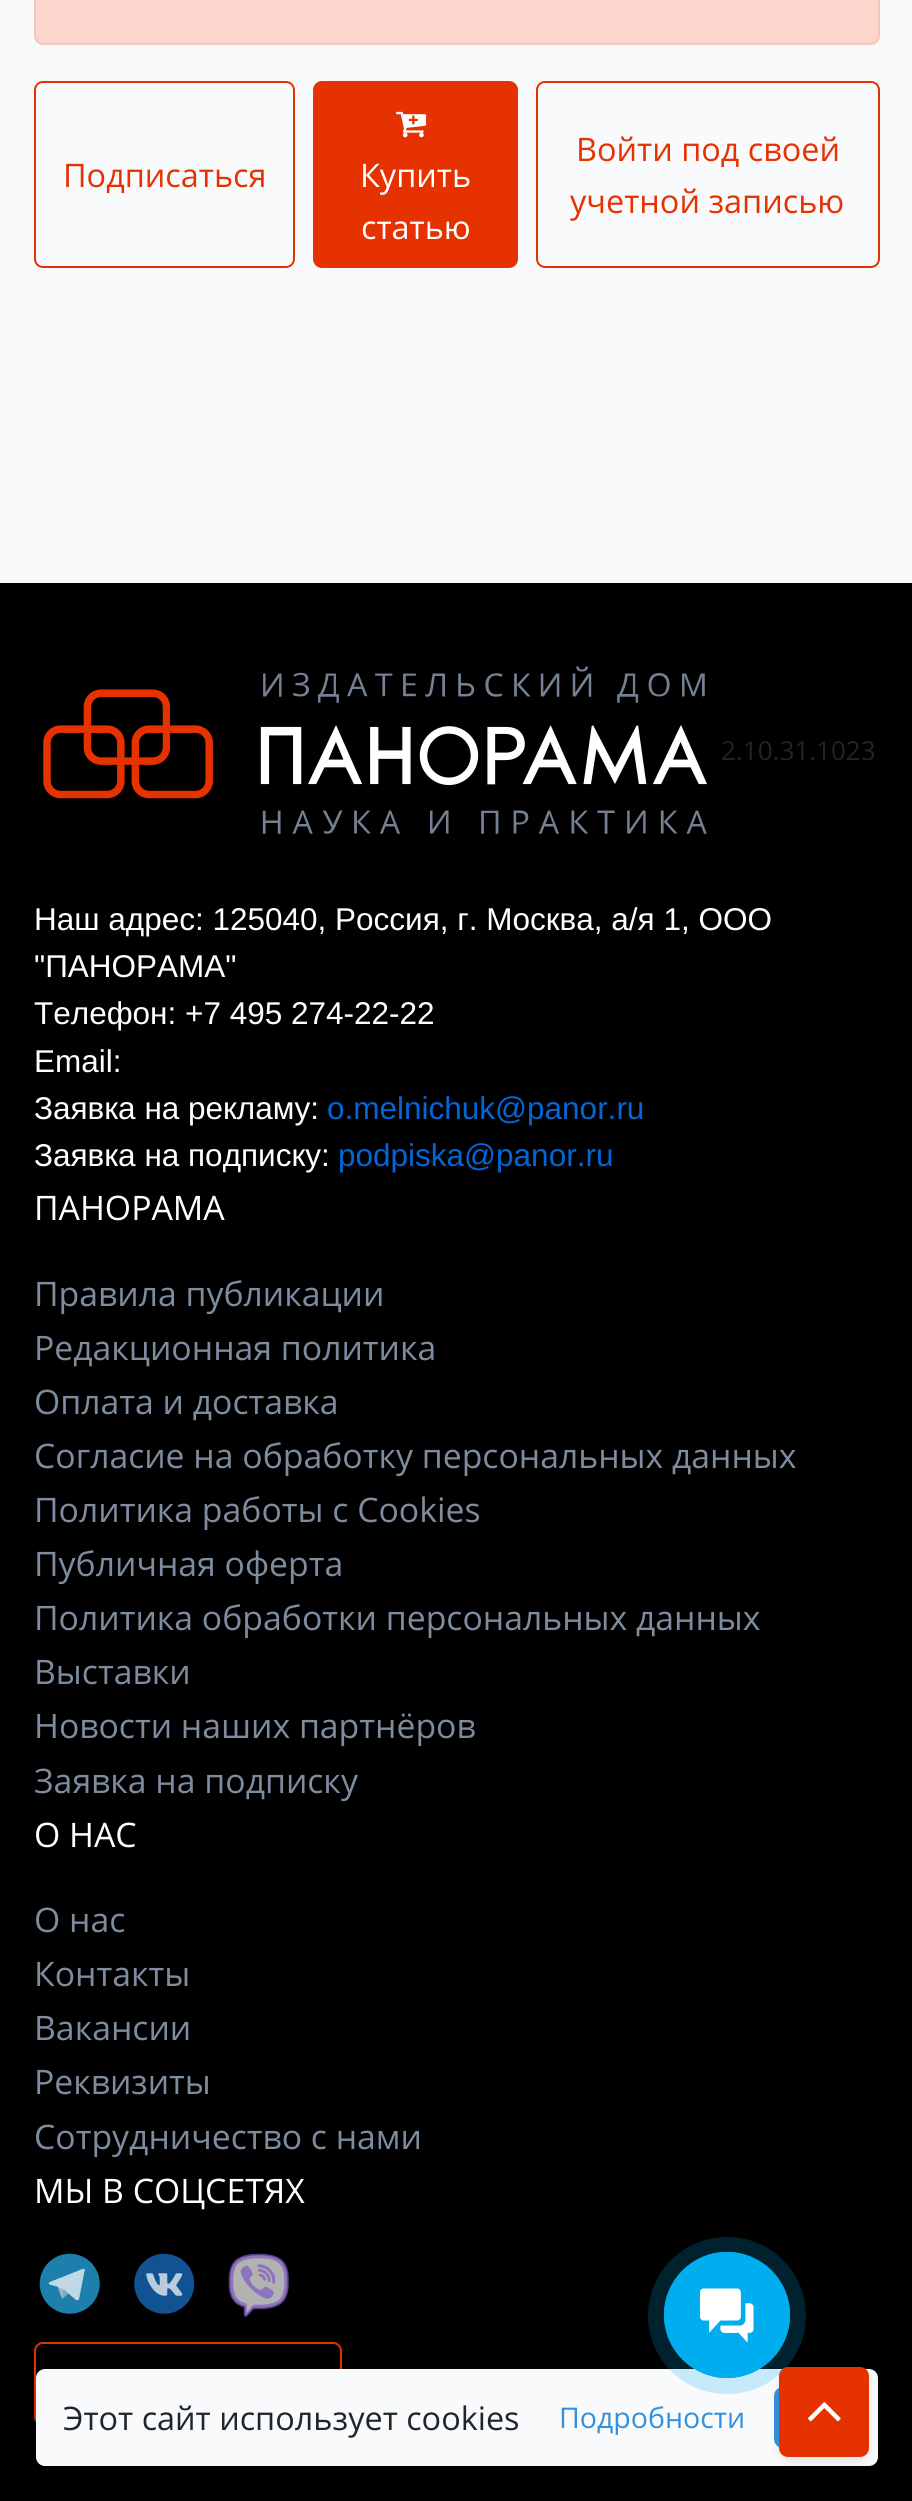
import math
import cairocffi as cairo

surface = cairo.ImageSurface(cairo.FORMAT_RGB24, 912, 2501)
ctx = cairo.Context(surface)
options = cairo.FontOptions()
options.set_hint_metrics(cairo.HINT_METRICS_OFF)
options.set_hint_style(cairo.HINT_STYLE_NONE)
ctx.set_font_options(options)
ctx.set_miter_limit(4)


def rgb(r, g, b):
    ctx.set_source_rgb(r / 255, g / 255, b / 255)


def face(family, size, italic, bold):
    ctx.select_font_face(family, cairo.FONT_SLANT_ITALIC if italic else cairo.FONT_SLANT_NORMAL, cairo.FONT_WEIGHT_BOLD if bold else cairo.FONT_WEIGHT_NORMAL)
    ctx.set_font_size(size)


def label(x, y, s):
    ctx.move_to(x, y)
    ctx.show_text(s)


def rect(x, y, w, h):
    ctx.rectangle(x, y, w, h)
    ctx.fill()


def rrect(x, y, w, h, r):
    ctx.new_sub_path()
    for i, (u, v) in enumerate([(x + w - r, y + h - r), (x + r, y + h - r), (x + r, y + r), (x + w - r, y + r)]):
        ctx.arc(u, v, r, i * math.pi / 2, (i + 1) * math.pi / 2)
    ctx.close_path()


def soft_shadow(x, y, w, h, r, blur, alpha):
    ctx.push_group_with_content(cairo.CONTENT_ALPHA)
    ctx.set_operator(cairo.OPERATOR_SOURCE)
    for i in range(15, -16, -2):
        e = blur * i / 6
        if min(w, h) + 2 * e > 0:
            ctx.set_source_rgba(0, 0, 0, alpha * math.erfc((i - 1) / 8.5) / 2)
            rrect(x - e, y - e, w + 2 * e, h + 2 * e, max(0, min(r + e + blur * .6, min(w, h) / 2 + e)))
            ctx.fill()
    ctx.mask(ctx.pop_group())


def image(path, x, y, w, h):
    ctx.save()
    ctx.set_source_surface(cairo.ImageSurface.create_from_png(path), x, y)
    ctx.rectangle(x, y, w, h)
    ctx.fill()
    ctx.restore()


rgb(248, 250, 252)
ctx.paint()
rgb(250, 214, 204)
rrect(35, -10, 844, 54, 8)
ctx.fill_preserve()
rgb(248, 198, 184)
ctx.stroke()
rrect(35, 82, 259, 185, 8)
rgb(230, 50, 1)
ctx.stroke()
face('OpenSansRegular', 32.4, 0, 0)
label(63, 187, 'Подписаться')
rrect(314, 82, 203, 185, 8)
ctx.fill_preserve()
ctx.stroke()
image('image0.png', 396, 111, 31, 27)
rgb(255, 255, 255)
label(360, 187, 'Купить')
label(361, 239, 'статью')
rrect(537, 82, 342, 185, 8)
rgb(230, 50, 1)
ctx.stroke()
label(576, 161, 'Войти под своей')
label(570, 213, 'учетной записью')
rgb(0, 0, 0)
rect(0, 583, 912, 1918)
image('image1.png', 43, 666, 664, 168)
face('OpenSansRegular', 26, 0, 0)
rgb(33, 37, 41)
label(721, 760, '2.10.31.1023')
face('Liberation Sans', 31.5, 0, 0)
rgb(255, 255, 255)
label(34, 930, 'Наш адрес: 125040, Россия, г. Москва, а/я 1, ООО')
label(34, 977, '"ПАНОРАМА"')
label(34, 1024, 'Телефон: +7 495 274-22-22')
label(34, 1072, 'Email:')
label(34, 1119, 'Заявка на рекламу:')
rgb(3, 102, 214)
label(327, 1119, 'o.melnichuk@panor.ru')
rgb(255, 255, 255)
label(34, 1166, 'Заявка на подписку:')
rgb(3, 102, 214)
label(338, 1166, 'podpiska@panor.ru')
face('OpenSansRegular', 33.75, 0, 0)
rgb(255, 255, 255)
label(34, 1220, 'ПАНОРАМА')
rgb(126, 140, 159)
label(34, 1306, 'Правила публикации')
label(34, 1360, 'Редакционная политика')
label(34, 1414, 'Оплата и доставка')
label(34, 1468, 'Согласие на обработку персональных данных')
label(34, 1522, 'Политика работы с Cookies')
label(34, 1576, 'Публичная оферта')
label(34, 1630, 'Политика обработки персональных данных')
label(34, 1684, 'Выставки')
label(34, 1738, 'Новости наших партнёров')
label(34, 1793, 'Заявка на подписку')
rgb(255, 255, 255)
label(34, 1847, 'О НАС')
rgb(126, 140, 159)
label(34, 1932, 'О нас')
label(34, 1986, 'Контакты')
label(34, 2040, 'Вакансии')
label(34, 2094, 'Реквизиты')
label(34, 2149, 'Сотрудничество с нами')
rgb(255, 255, 255)
label(34, 2203, 'МЫ В СОЦСЕТЯХ')
image('image2.png', 39, 2253, 61, 61)
image('image3.png', 134, 2253, 61, 61)
image('image4.png', 228, 2253, 61, 64)
rrect(35, 2343, 306, 82, 8)
rgb(230, 50, 1)
ctx.stroke()
rgb(0, 0, 0)
soft_shadow(36, 2387, 842, 97, 9, 18, 0.15)
rgb(248, 250, 252)
rrect(36, 2369, 842, 97, 9)
ctx.fill()
rgb(52, 144, 220)
rrect(775, 2388, 75, 59, 8)
ctx.fill_preserve()
ctx.stroke()
rgb(0, 0, 0)
soft_shadow(779, 2372, 90, 90, 9, 4.5, 0.07)
rgb(230, 50, 1)
rrect(779, 2367, 90, 90, 9)
ctx.fill()
ctx.set_source_rgba(0, 0.682, 0.937, 0.2)
rrect(648, 2237, 158, 157, 78.5)
ctx.fill()
ctx.arc(727, 2315, 62, 0, 2 * math.pi)
rgb(0, 174, 239)
ctx.stroke()
ctx.arc(727, 2315, 63, 0, 2 * math.pi)
ctx.fill()
image('image5.png', 700, 2288, 54, 54)
face('OpenSansRegular', 32.4, 0, 0)
rgb(33, 37, 41)
label(63, 2430, 'Этот сайт использует cookies')
face('OpenSansRegular', 28.5, 0, 0)
rgb(52, 144, 220)
label(559, 2428, 'Подробности')
image('image6.png', 808, 2402, 33, 20)
surface.write_to_png('render.png')
